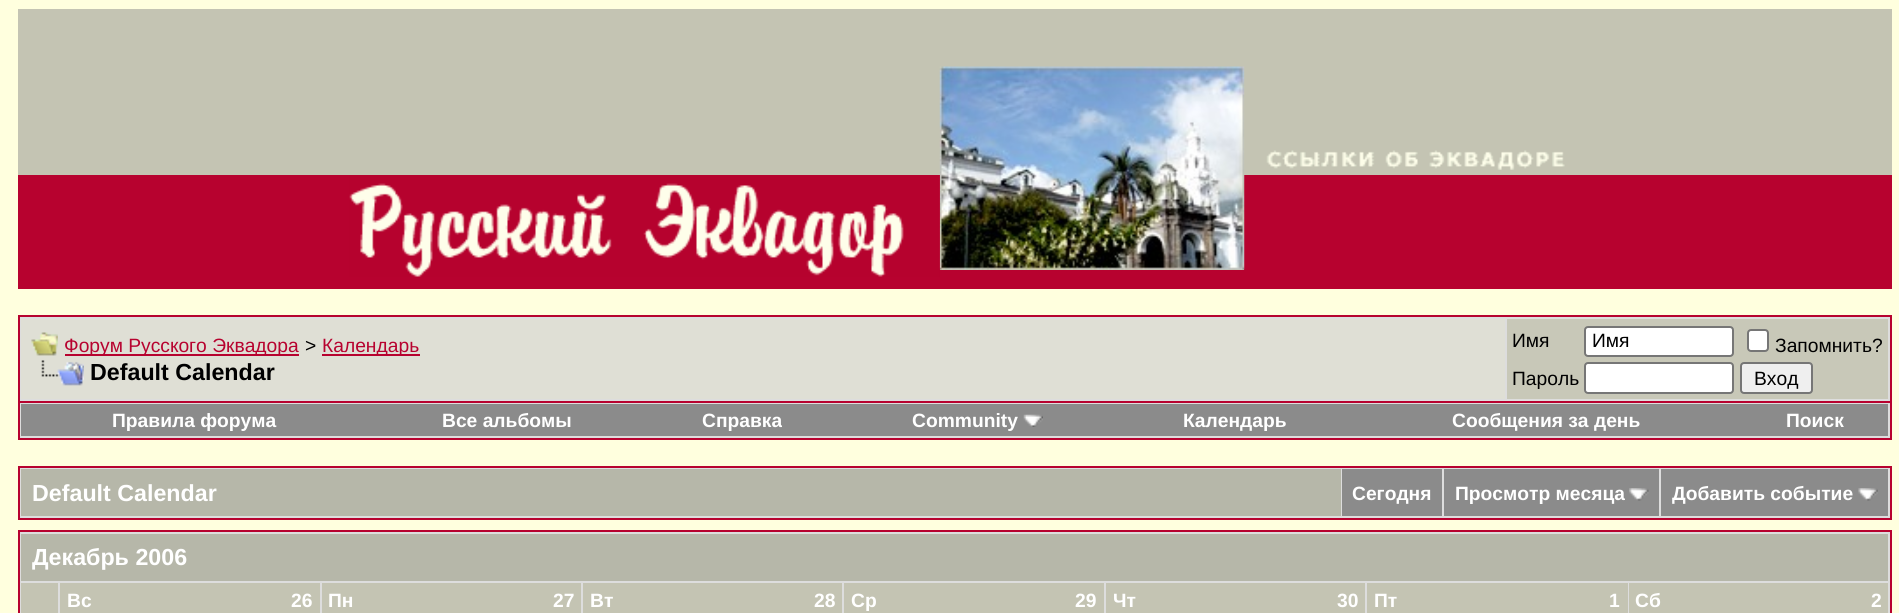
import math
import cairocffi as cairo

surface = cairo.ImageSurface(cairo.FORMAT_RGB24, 1899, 613)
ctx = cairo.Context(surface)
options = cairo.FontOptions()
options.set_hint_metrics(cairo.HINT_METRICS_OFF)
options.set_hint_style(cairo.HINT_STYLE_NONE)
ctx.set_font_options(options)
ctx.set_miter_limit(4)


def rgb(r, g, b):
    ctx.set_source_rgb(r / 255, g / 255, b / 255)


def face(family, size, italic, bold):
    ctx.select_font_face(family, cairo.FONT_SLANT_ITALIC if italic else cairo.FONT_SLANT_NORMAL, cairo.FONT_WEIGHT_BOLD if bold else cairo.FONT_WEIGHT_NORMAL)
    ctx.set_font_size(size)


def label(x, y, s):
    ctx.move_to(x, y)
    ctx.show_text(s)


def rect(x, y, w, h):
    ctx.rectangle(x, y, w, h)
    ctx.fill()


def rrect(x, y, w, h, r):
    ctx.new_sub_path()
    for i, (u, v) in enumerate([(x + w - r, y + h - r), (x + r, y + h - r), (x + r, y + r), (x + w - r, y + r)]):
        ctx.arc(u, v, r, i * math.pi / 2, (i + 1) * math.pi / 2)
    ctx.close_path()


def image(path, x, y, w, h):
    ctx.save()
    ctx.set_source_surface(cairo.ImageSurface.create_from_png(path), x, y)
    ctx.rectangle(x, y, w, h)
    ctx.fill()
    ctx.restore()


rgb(255, 255, 222)
ctx.paint()
rgb(196, 196, 179)
rect(18, 9, 273, 166)
rect(291, 9, 1330, 261)
rgb(183, 2, 47)
rect(18, 175, 922, 114)
rect(1244, 175, 377, 95)
image('image0.png', 939, 66, 306, 204)
image('image1.png', 1266, 150, 299, 20)
image('image2.png', 349, 175, 591, 102)
rect(940, 270, 681, 19)
rgb(196, 196, 179)
rect(1621, 9, 271, 166)
rgb(183, 2, 47)
rect(1621, 175, 271, 114)
rgb(221, 221, 221)
ctx.rectangle(19, 316, 1872, 86)
ctx.fill_preserve()
rgb(183, 2, 47)
ctx.stroke()
rgb(223, 223, 213)
rect(21, 319, 1484, 80)
image('image3.png', 31, 332, 27, 24)
rgb(183, 2, 47)
rect(65, 354, 234, 2)
face('Liberation Sans', 19.25, 0, 0)
label(64, 352, 'Форум Русского Эквадора')
rgb(0, 0, 0)
label(305, 352, '>')
rgb(183, 2, 47)
rect(322, 354, 98, 2)
label(322, 352, 'Календарь')
image('image4.png', 41, 360, 43, 26)
face('Liberation Sans', 23.25, 0, 1)
rgb(0, 0, 0)
label(90, 380, 'Default Calendar')
rgb(200, 200, 184)
rect(1507, 319, 381, 80)
face('Liberation Sans', 19.25, 0, 0)
rgb(0, 0, 0)
label(1512, 347, 'Имя')
rgb(255, 255, 255)
rrect(1585, 327, 148, 29, 3)
ctx.fill_preserve()
rgb(118, 118, 118)
ctx.stroke()
rgb(0, 0, 0)
label(1592, 347, 'Имя')
rgb(255, 255, 255)
rrect(1748, 330, 20, 21, 3)
ctx.fill_preserve()
rgb(118, 118, 118)
ctx.stroke()
rgb(0, 0, 0)
label(1775, 352, 'Запомнить?')
label(1512, 385, 'Пароль')
rgb(255, 255, 255)
rrect(1585, 363, 148, 30, 3)
ctx.fill_preserve()
rgb(118, 118, 118)
ctx.stroke()
rgb(239, 239, 239)
rrect(1741, 363, 71, 30, 3)
ctx.fill_preserve()
rgb(118, 118, 118)
ctx.stroke()
rgb(0, 0, 0)
label(1754, 385, 'Вход')
rgb(221, 221, 221)
rect(20, 403, 1870, 35)
rgb(183, 2, 47)
rect(1890, 403, 2, 36)
rect(18, 438, 1874, 2)
rect(18, 403, 2, 36)
rgb(139, 139, 139)
rect(21, 404, 1867, 32)
face('Liberation Sans', 19.25, 0, 1)
rgb(255, 255, 255)
label(112, 427, 'Правила форума')
label(442, 427, 'Все альбомы')
label(702, 427, 'Справка')
label(912, 427, 'Community')
image('image5.png', 1023, 414, 20, 13)
label(1183, 427, 'Календарь')
label(1452, 427, 'Сообщения за день')
label(1786, 427, 'Поиск')
rgb(221, 221, 221)
ctx.rectangle(19, 467, 1872, 52)
ctx.fill_preserve()
rgb(183, 2, 47)
ctx.stroke()
rgb(182, 183, 169)
rect(21, 469, 1320, 47)
face('Liberation Sans', 23.25, 0, 1)
rgb(255, 255, 255)
label(32, 501, 'Default Calendar')
rgb(139, 139, 139)
rect(1342, 469, 100, 47)
face('Liberation Sans', 19.25, 0, 1)
rgb(255, 255, 255)
label(1352, 500, 'Сегодня')
rgb(139, 139, 139)
rect(1444, 469, 215, 47)
rgb(255, 255, 255)
label(1455, 500, 'Просмотр месяца')
image('image6.png', 1629, 488, 20, 13)
rgb(139, 139, 139)
rect(1661, 469, 227, 47)
rgb(255, 255, 255)
label(1672, 500, 'Добавить событие')
image('image7.png', 1858, 488, 20, 13)
rgb(221, 221, 221)
ctx.rectangle(19, 531, 1872, 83)
ctx.fill_preserve()
rgb(183, 2, 47)
ctx.stroke()
rgb(182, 183, 169)
rect(21, 534, 1867, 47)
face('Liberation Sans', 23.25, 0, 1)
rgb(255, 255, 255)
label(32, 565, 'Декабрь 2006')
rgb(196, 196, 179)
rect(21, 583, 37, 30)
rect(60, 583, 260, 30)
face('Liberation Sans', 19.25, 0, 1)
rgb(255, 255, 255)
label(67, 607, 'Вс')
label(291, 607, '26')
rgb(196, 196, 179)
rect(322, 583, 259, 30)
rgb(255, 255, 255)
label(328, 607, 'Пн')
label(553, 607, '27')
rgb(196, 196, 179)
rect(583, 583, 259, 30)
rgb(255, 255, 255)
label(590, 607, 'Вт')
label(814, 607, '28')
rgb(196, 196, 179)
rect(844, 583, 260, 30)
rgb(255, 255, 255)
label(851, 607, 'Ср')
label(1075, 607, '29')
rgb(196, 196, 179)
rect(1106, 583, 259, 30)
rgb(255, 255, 255)
label(1113, 607, 'Чт')
label(1337, 607, '30')
rgb(196, 196, 179)
rect(1367, 583, 261, 30)
rgb(255, 255, 255)
label(1374, 607, 'Пт')
label(1609, 607, '1')
rgb(196, 196, 179)
rect(1629, 583, 259, 30)
rgb(255, 255, 255)
label(1635, 607, 'Сб')
label(1871, 607, '2')
surface.write_to_png('render.png')
